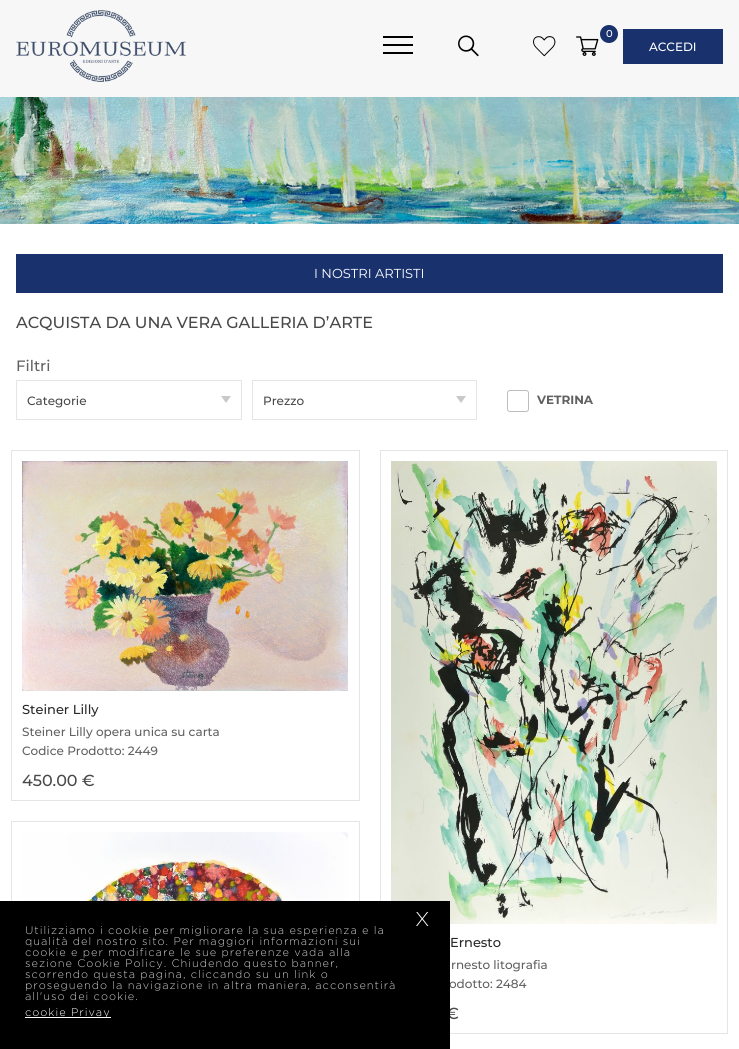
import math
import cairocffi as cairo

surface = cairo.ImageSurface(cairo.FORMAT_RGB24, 739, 1049)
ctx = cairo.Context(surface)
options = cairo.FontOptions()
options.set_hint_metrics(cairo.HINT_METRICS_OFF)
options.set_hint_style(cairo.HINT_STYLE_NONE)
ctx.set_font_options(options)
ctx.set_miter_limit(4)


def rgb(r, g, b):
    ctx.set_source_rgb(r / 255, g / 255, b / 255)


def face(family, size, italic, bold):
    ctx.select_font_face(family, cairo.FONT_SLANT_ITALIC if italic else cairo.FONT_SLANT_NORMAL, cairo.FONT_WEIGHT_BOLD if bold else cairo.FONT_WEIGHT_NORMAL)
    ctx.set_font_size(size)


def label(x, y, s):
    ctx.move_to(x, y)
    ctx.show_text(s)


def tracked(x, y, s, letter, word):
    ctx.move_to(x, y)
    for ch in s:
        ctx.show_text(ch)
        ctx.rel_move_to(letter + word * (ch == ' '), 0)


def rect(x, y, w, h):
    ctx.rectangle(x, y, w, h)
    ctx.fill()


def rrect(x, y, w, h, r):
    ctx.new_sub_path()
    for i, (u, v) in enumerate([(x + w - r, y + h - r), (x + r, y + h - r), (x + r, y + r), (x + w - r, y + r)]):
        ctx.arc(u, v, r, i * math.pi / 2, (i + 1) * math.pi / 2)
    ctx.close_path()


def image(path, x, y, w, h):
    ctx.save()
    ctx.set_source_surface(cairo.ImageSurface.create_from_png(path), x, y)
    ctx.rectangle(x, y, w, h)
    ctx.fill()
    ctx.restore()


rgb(255, 255, 255)
ctx.paint()
rgb(247, 247, 247)
rect(0, 0, 739, 97)
rgb(0, 0, 0)
rect(383, 36, 30, 2)
rect(383, 44, 30, 2)
rect(383, 52, 30, 2)
image('image0.png', 458, 35, 21, 22)
image('image1.png', 16, 10, 170, 72)
rgb(25, 49, 109)
ctx.arc(609, 34, 9, 0, 2 * math.pi)
ctx.fill()
face('Montserrat Medium', 10, 0, 0)
rgb(255, 255, 255)
label(606, 37, '0')
image('image2.png', 576, 36, 23, 20)
image('image3.png', 533, 36, 23, 21)
rgb(25, 49, 109)
rect(623, 29, 100, 35)
face('Montserrat Medium', 12, 0, 0)
rgb(255, 255, 255)
label(649, 51, 'ACCEDI')
image('image4.png', 0, 97, 739, 127)
rgb(25, 49, 109)
rect(16, 254, 707, 39)
face('Montserrat', 13, 0, 0)
rgb(255, 255, 255)
label(314, 278, 'I NOSTRI ARTISTI')
face('Montserrat Medium', 16, 0, 0)
rgb(73, 73, 73)
label(16, 328, 'ACQUISTA DA UNA VERA GALLERIA D’ARTE')
face('Montserrat Medium', 15, 0, 0)
rgb(97, 97, 97)
label(16, 371, 'Filtri')
ctx.rectangle(16.5, 380.5, 225, 39)
rgb(229, 229, 229)
ctx.set_line_width(1)
ctx.stroke()
face('Montserrat Medium', 12, 0, 0)
rgb(73, 73, 73)
label(27, 405, 'Categorie')
rgb(201, 201, 201)
ctx.new_path()
ctx.move_to(231, 396)
ctx.line_to(226, 403)
ctx.line_to(221, 396)
ctx.close_path()
ctx.fill()
ctx.rectangle(252.5, 380.5, 224, 39)
rgb(229, 229, 229)
ctx.stroke()
rgb(73, 73, 73)
label(263, 405, 'Prezzo')
rgb(201, 201, 201)
ctx.new_path()
ctx.move_to(466, 396)
ctx.line_to(461, 403)
ctx.line_to(456, 396)
ctx.close_path()
ctx.fill()
rrect(507.5, 390.5, 21, 21, 2.5)
rgb(189, 189, 189)
ctx.stroke()
face('Montserrat', 12, 0, 1)
rgb(97, 97, 97)
label(537, 404, 'VETRINA')
ctx.rectangle(11.5, 450.5, 348, 350)
rgb(229, 229, 229)
ctx.stroke()
image('image5.png', 22, 461, 326, 230)
face('Montserrat Medium', 13, 0, 0)
rgb(40, 40, 40)
label(22, 714, 'Steiner Lilly')
face('Montserrat Medium', 12, 0, 0)
rgb(97, 97, 97)
label(22, 736, 'Steiner Lilly opera unica su carta')
label(22, 755, 'Codice Prodotto: 2449')
face('Montserrat Medium', 16, 0, 0)
rgb(73, 73, 73)
label(22, 786, '450.00 €')
ctx.rectangle(11.5, 821.5, 348, 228)
rgb(229, 229, 229)
ctx.stroke()
image('image6.png', 22, 832, 326, 69)
ctx.rectangle(380.5, 450.5, 347, 583)
ctx.stroke()
image('image7.png', 391, 461, 326, 463)
face('Montserrat Medium', 13, 0, 0)
rgb(40, 40, 40)
label(450, 947, 'Ernesto')
face('Montserrat Medium', 12, 0, 0)
rgb(97, 97, 97)
label(451, 969, 'rnesto litografia')
label(449, 988, 'odotto: 2484')
face('Montserrat Medium', 16, 0, 0)
rgb(73, 73, 73)
label(446, 1019, '€')
rgb(0, 0, 0)
rect(0, 901, 450, 148)
face('Gotham Light', 20, 0, 0)
rgb(255, 255, 255)
tracked(415, 926, 'X', 1, 0)
face('Gotham Light', 11, 0, 0)
rgb(204, 204, 204)
tracked(25, 934, 'Utilizziamo i cookie per migliorare la sua esperienza e la', 1, 0)
tracked(25, 945, 'qualità del nostro sito. Per maggiori informazioni sui', 1, 0)
tracked(25, 956, 'cookie e per modificare le sue preferenze vada alla', 1, 0)
tracked(25, 967, 'sezione Cookie Policy. Chiudendo questo banner,', 1, 0)
tracked(25, 978, 'scorrendo questa pagina, cliccando su un link o', 1, 0)
tracked(25, 989, 'proseguendo la navigazione in altra maniera, acconsentirà', 1, 0)
tracked(25, 1000, 'all\'uso dei cookie.', 1, 0)
rgb(255, 255, 255)
rect(25, 1017, 86, 1)
tracked(25, 1016, 'cookie Privay', 1, 0)
surface.write_to_png('render.png')
